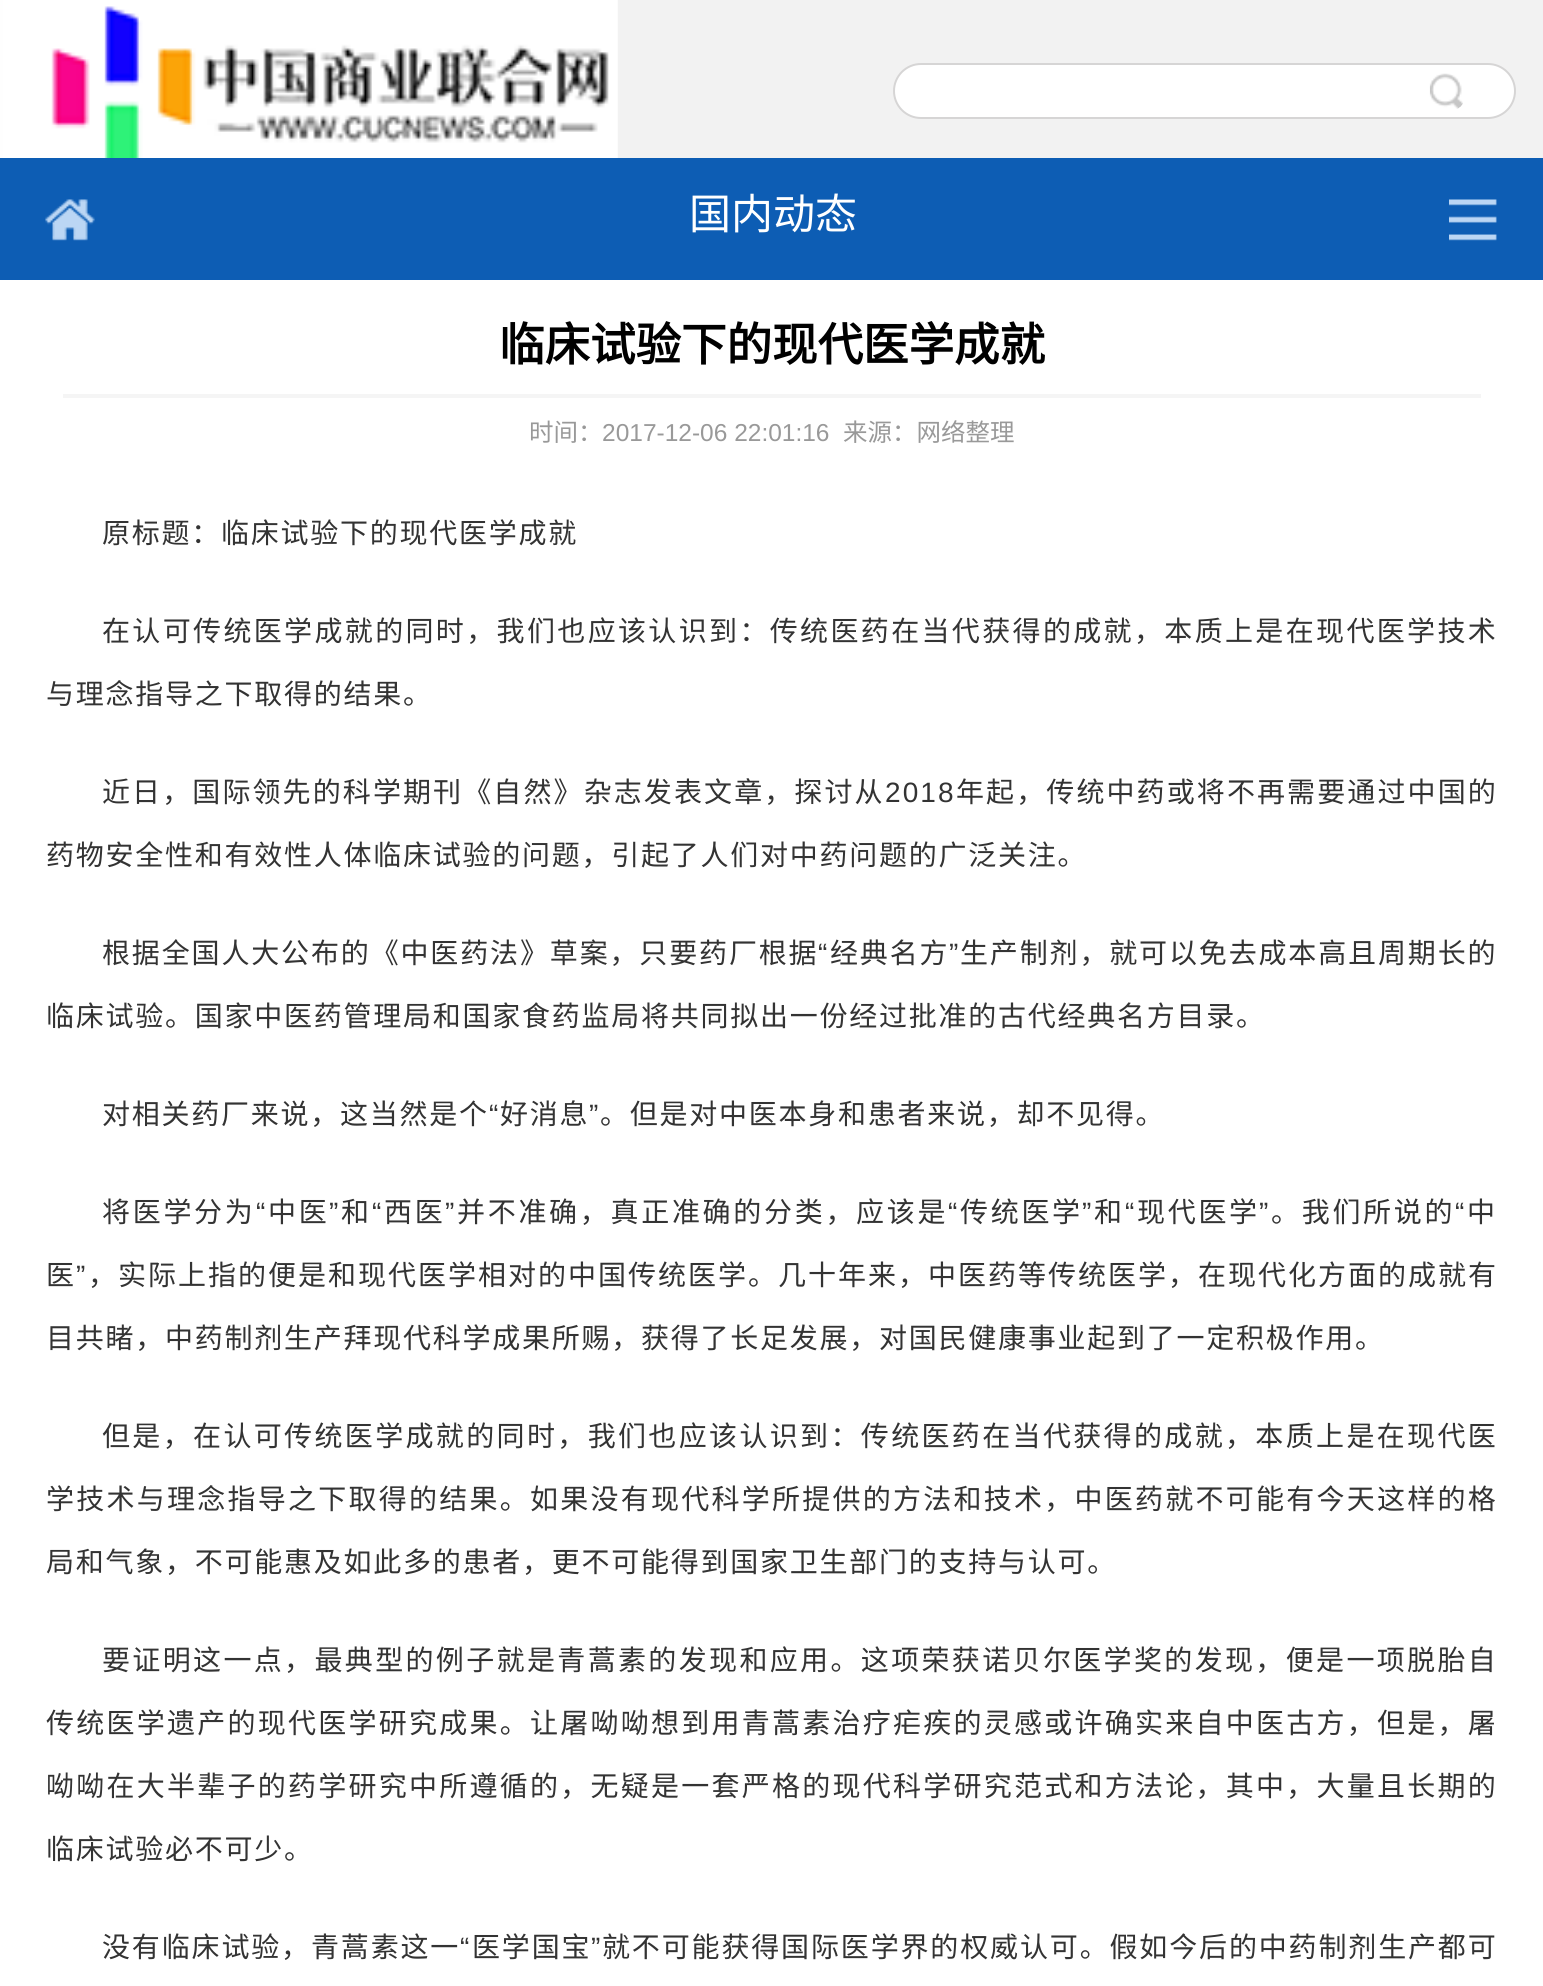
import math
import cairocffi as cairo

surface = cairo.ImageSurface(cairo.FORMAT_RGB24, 1543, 1986)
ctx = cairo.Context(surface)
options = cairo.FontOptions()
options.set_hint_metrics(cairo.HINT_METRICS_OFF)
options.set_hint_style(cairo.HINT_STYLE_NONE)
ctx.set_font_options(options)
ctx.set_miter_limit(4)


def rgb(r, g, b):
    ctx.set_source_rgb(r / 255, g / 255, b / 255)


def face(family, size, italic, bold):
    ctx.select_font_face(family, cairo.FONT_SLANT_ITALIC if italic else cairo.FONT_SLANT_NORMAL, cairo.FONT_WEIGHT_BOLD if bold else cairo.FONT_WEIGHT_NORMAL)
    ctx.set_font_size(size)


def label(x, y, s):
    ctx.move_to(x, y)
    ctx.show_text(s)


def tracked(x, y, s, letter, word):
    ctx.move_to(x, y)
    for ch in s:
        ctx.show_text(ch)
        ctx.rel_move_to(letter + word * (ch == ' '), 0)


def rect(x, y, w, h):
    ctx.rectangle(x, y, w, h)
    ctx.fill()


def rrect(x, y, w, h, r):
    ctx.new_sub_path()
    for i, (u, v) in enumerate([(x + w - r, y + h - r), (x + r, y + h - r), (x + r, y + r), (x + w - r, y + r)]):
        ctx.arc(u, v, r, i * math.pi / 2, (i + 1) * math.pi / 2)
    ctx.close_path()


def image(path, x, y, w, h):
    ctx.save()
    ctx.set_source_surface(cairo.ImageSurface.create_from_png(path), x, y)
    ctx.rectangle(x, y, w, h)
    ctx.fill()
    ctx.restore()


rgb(255, 255, 255)
ctx.paint()
rgb(242, 242, 242)
rect(0, 0, 1543, 158)
image('image0.png', 0, 0, 618, 158)
rgb(255, 255, 255)
rrect(894, 64, 621, 54, 27)
ctx.fill_preserve()
rgb(214, 213, 213)
ctx.stroke()
image('image1.png', 1429, 73, 34, 36)
rgb(13, 93, 180)
rect(0, 158, 1543, 122)
image('image2.png', 45, 199, 50, 42)
face('Noto Sans CJK SC', 42, 0, 0)
rgb(255, 255, 255)
label(689, 229, '国内动态')
image('image3.png', 1449, 199, 48, 42)
rgb(245, 245, 245)
rect(63, 394, 1418, 4)
face('Noto Sans CJK SC', 45.5, 0, 1)
rgb(0, 0, 0)
label(499, 361, '临床试验下的现代医学成就')
face('Noto Sans CJK SC', 24.5, 0, 0)
rgb(153, 153, 153)
label(529, 441, '时间：')
face('Liberation Sans', 24.5, 0, 0)
label(602, 441, '2017-12-06 22:01:16')
face('Noto Sans CJK SC', 24.5, 0, 0)
label(843, 441, '来源：网络整理')
face('Noto Sans CJK SC', 28, 0, 0)
rgb(51, 51, 51)
tracked(102, 543, '原标题：临床试验下的现代医学成就', 1.75, 0)
tracked(102, 641, '在认可传统医学成就的同时，我们也应该认识到：传统医药在当代获得的成就，本质上是在现代医学技术', 2.35, 0)
tracked(46, 704, '与理念指导之下取得的结果。', 1.75, 0)
tracked(102, 802, '近日，国际领先的科学期刊《自然》杂志发表文章，探讨从', 2.1, 0)
face('Liberation Sans', 28, 0, 0)
tracked(885, 802, '2018', 2.1, 0)
face('Noto Sans CJK SC', 28, 0, 0)
tracked(956, 802, '年起，传统中药或将不再需要通过中国的', 2.1, 0)
tracked(46, 865, '药物安全性和有效性人体临床试验的问题，引起了人们对中药问题的广泛关注。', 1.75, 0)
tracked(102, 963, '根据全国人大公布的《中医药法》草案，只要药厂根据', 1.85, 0)
face('Liberation Sans', 28, 0, 0)
tracked(818, 963, '“', 1.85, 0)
face('Noto Sans CJK SC', 28, 0, 0)
tracked(830, 963, '经典名方', 1.85, 0)
face('Liberation Sans', 28, 0, 0)
tracked(949, 963, '”', 1.85, 0)
face('Noto Sans CJK SC', 28, 0, 0)
tracked(960, 963, '生产制剂，就可以免去成本高且周期长的', 1.85, 0)
tracked(46, 1026, '临床试验。国家中医药管理局和国家食药监局将共同拟出一份经过批准的古代经典名方目录。', 1.75, 0)
tracked(102, 1124, '对相关药厂来说，这当然是个', 1.75, 0)
face('Liberation Sans', 28, 0, 0)
tracked(489, 1124, '“', 1.75, 0)
face('Noto Sans CJK SC', 28, 0, 0)
tracked(500, 1124, '好消息', 1.75, 0)
face('Liberation Sans', 28, 0, 0)
tracked(589, 1124, '”', 1.75, 0)
face('Noto Sans CJK SC', 28, 0, 0)
tracked(600, 1124, '。但是对中医本身和患者来说，却不见得。', 1.75, 0)
tracked(102, 1222, '将医学分为', 2.7, 0)
face('Liberation Sans', 28, 0, 0)
tracked(256, 1222, '“', 2.7, 0)
face('Noto Sans CJK SC', 28, 0, 0)
tracked(268, 1222, '中医', 2.7, 0)
face('Liberation Sans', 28, 0, 0)
tracked(329, 1222, '”', 2.7, 0)
face('Noto Sans CJK SC', 28, 0, 0)
tracked(341, 1222, '和', 2.7, 0)
face('Liberation Sans', 28, 0, 0)
tracked(372, 1222, '“', 2.7, 0)
face('Noto Sans CJK SC', 28, 0, 0)
tracked(384, 1222, '西医', 2.7, 0)
face('Liberation Sans', 28, 0, 0)
tracked(445, 1222, '”', 2.7, 0)
face('Noto Sans CJK SC', 28, 0, 0)
tracked(457, 1222, '并不准确，真正准确的分类，应该是', 2.7, 0)
face('Liberation Sans', 28, 0, 0)
tracked(948, 1222, '“', 2.7, 0)
face('Noto Sans CJK SC', 28, 0, 0)
tracked(960, 1222, '传统医学', 2.7, 0)
face('Liberation Sans', 28, 0, 0)
tracked(1082, 1222, '”', 2.7, 0)
face('Noto Sans CJK SC', 28, 0, 0)
tracked(1094, 1222, '和', 2.7, 0)
face('Liberation Sans', 28, 0, 0)
tracked(1125, 1222, '“', 2.7, 0)
face('Noto Sans CJK SC', 28, 0, 0)
tracked(1137, 1222, '现代医学', 2.7, 0)
face('Liberation Sans', 28, 0, 0)
tracked(1259, 1222, '”', 2.7, 0)
face('Noto Sans CJK SC', 28, 0, 0)
tracked(1271, 1222, '。我们所说的', 2.7, 0)
face('Liberation Sans', 28, 0, 0)
tracked(1455, 1222, '“', 2.7, 0)
face('Noto Sans CJK SC', 28, 0, 0)
tracked(1467, 1222, '中', 2.7, 0)
tracked(46, 1285, '医', 2, 0)
face('Liberation Sans', 28, 0, 0)
tracked(76, 1285, '”', 2, 0)
face('Noto Sans CJK SC', 28, 0, 0)
tracked(88, 1285, '，实际上指的便是和现代医学相对的中国传统医学。几十年来，中医药等传统医学，在现代化方面的成就有', 2, 0)
tracked(46, 1348, '目共睹，中药制剂生产拜现代科学成果所赐，获得了长足发展，对国民健康事业起到了一定积极作用。', 1.75, 0)
tracked(102, 1446, '但是，在认可传统医学成就的同时，我们也应该认识到：传统医药在当代获得的成就，本质上是在现代医', 2.35, 0)
tracked(46, 1509, '学技术与理念指导之下取得的结果。如果没有现代科学所提供的方法和技术，中医药就不可能有今天这样的格', 2.25, 0)
tracked(46, 1572, '局和气象，不可能惠及如此多的患者，更不可能得到国家卫生部门的支持与认可。', 1.75, 0)
tracked(102, 1670, '要证明这一点，最典型的例子就是青蒿素的发现和应用。这项荣获诺贝尔医学奖的发现，便是一项脱胎自', 2.35, 0)
tracked(46, 1733, '传统医学遗产的现代医学研究成果。让屠呦呦想到用青蒿素治疗疟疾的灵感或许确实来自中医古方，但是，屠', 2.25, 0)
tracked(46, 1796, '呦呦在大半辈子的药学研究中所遵循的，无疑是一套严格的现代科学研究范式和方法论，其中，大量且长期的', 2.25, 0)
tracked(46, 1859, '临床试验必不可少。', 1.75, 0)
tracked(102, 1957, '没有临床试验，青蒿素这一', 1.85, 0)
face('Liberation Sans', 28, 0, 0)
tracked(460, 1957, '“', 1.85, 0)
face('Noto Sans CJK SC', 28, 0, 0)
tracked(472, 1957, '医学国宝', 1.85, 0)
face('Liberation Sans', 28, 0, 0)
tracked(591, 1957, '”', 1.85, 0)
face('Noto Sans CJK SC', 28, 0, 0)
tracked(602, 1957, '就不可能获得国际医学界的权威认可。假如今后的中药制剂生产都可', 1.85, 0)
surface.write_to_png('render.png')
